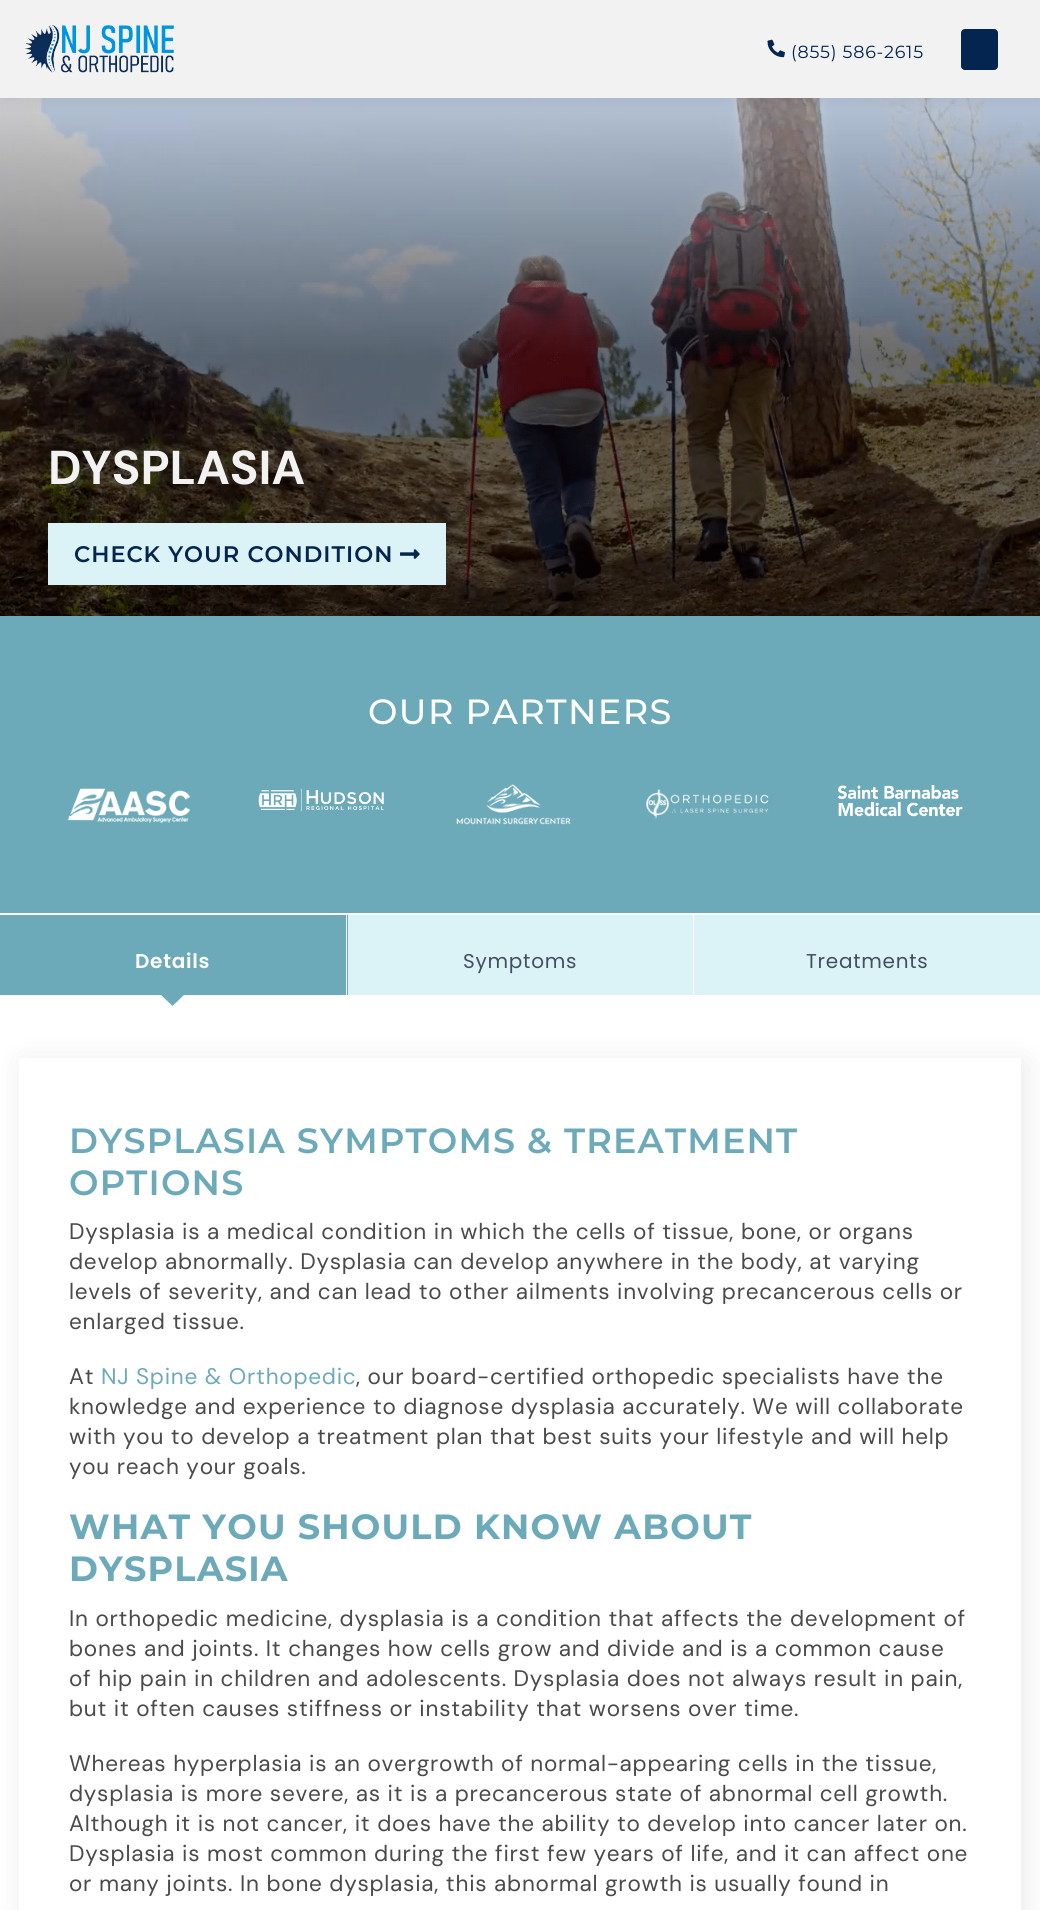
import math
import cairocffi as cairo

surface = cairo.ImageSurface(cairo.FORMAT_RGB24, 1040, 1910)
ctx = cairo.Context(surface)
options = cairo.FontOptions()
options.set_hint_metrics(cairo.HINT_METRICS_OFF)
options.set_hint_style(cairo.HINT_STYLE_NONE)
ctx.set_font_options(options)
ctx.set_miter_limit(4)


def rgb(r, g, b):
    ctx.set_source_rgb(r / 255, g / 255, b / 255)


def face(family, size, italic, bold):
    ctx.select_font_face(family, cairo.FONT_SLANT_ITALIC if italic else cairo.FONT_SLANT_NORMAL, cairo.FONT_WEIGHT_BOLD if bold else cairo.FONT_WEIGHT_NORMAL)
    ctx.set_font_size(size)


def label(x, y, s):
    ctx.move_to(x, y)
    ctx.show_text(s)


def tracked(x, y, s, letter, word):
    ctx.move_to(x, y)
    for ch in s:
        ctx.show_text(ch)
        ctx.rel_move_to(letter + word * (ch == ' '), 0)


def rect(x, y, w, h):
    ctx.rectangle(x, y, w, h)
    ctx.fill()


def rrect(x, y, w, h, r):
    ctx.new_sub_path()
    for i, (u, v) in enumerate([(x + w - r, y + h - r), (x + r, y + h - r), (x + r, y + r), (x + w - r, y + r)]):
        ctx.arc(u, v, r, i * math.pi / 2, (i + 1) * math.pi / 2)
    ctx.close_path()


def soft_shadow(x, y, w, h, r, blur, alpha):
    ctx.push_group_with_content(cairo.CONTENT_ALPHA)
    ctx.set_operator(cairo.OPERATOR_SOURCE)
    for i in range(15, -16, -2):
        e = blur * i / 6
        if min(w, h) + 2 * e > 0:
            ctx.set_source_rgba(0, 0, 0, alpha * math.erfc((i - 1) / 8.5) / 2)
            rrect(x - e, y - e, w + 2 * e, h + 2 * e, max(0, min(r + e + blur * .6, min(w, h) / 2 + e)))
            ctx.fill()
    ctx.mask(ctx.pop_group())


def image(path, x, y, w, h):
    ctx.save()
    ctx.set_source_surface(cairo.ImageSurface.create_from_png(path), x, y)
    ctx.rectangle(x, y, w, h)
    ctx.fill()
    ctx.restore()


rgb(255, 255, 255)
ctx.paint()
image('image2.png', 0, 98, 1040, 518)
rgb(0, 0, 0)
soft_shadow(0, 4, 1040, 97, 0, 7.5, 0.08)
rgb(242, 242, 242)
rect(0, 0, 1040, 98)
image('image0.png', 25, 25, 149, 48)
image('image1.png', 767, 39, 18, 19)
face('Montserrat', 17.5, 0, 0)
rgb(3, 37, 80)
tracked(791, 58, '(855) 586-2615', 0.75, 0)
rrect(961, 29, 37, 41, 4)
ctx.fill()
face('DM Sans', 47.5, 0, 1)
rgb(242, 242, 242)
label(48, 484, 'DYSPLASIA')
rgb(0, 0, 0)
soft_shadow(51, 526, 399, 63, 0, 15.5, 0.12)
rgb(219, 242, 247)
rect(48, 523, 398, 62)
face('Montserrat SemiBold', 22.5, 0, 0)
rgb(3, 37, 80)
tracked(74, 562, 'CHECK YOUR CONDITION', 1, 0)
image('image3.png', 400, 549, 20, 10)
rgb(108, 170, 185)
rect(0, 616, 1040, 297)
face('Montserrat Medium', 35, 0, 0)
rgb(255, 255, 255)
tracked(368, 724, 'OUR PARTNERS', 1.4, 0)
image('image4.png', 67, 788, 123, 35)
image('image5.png', 258, 788, 126, 24)
image('image6.png', 456, 784, 115, 41)
image('image7.png', 646, 789, 123, 30)
image('image8.png', 837, 785, 126, 32)
rgb(219, 242, 247)
rect(348, 915, 692, 80)
rgb(108, 170, 185)
rect(0, 915, 348, 80)
rgb(255, 255, 255)
rect(346, 915, 1, 80)
face('Poppins SemiBold', 20, 0, 0)
tracked(135, 968, 'Details', 0.75, 0)
rgb(108, 170, 185)
ctx.new_path()
ctx.move_to(160, 994)
ctx.line_to(185, 994)
ctx.line_to(172.5, 1006)
ctx.close_path()
ctx.fill()
rgb(255, 255, 255)
rect(693, 915, 1, 80)
face('Poppins', 20, 0, 0)
rgb(68, 79, 94)
tracked(463, 968, 'Symptoms', 0.75, 0)
tracked(806, 968, 'Treatments', 0.75, 0)
ctx.save()
ctx.set_fill_rule(cairo.FILL_RULE_EVEN_ODD)
ctx.new_path()
ctx.move_to(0, 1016)
ctx.line_to(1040, 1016)
ctx.line_to(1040, 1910)
ctx.line_to(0, 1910)
ctx.close_path()
ctx.move_to(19, 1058)
ctx.line_to(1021, 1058)
ctx.line_to(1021, 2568)
ctx.line_to(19, 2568)
ctx.close_path()
ctx.clip()
rgb(0, 0, 0)
soft_shadow(25, 1064, 998, 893, 0, 15.5, 0.1)
ctx.restore()
face('Montserrat SemiBold', 35, 0, 0)
rgb(108, 170, 185)
tracked(69, 1153, 'DYSPLASIA SYMPTOMS & TREATMENT', 1.2, 0)
tracked(69, 1195, 'OPTIONS', 1.2, 0)
face('DM Sans', 22.5, 0, 0)
rgb(74, 74, 74)
tracked(69, 1239, 'Dysplasia is a medical condition in which the cells of tissue, bone, or organs', 0.75, 0)
tracked(69, 1269, 'develop abnormally. Dysplasia can develop anywhere in the body, at varying', 0.75, 0)
tracked(69, 1299, 'levels of severity, and can lead to other ailments involving precancerous cells or', 0.75, 0)
tracked(69, 1329, 'enlarged tissue.', 0.75, 0)
tracked(69, 1384, 'At', 0.75, 0)
rgb(108, 170, 185)
tracked(101, 1384, 'NJ Spine & Orthopedic', 0.75, 0)
rgb(74, 74, 74)
tracked(356, 1384, ', our board-certified orthopedic specialists have the', 0.75, 0)
tracked(69, 1414, 'knowledge and experience to diagnose dysplasia accurately. We will collaborate', 0.75, 0)
tracked(69, 1444, 'with you to develop a treatment plan that best suits your lifestyle and will help', 0.75, 0)
tracked(69, 1474, 'you reach your goals.', 0.75, 0)
face('Montserrat', 35, 0, 1)
rgb(108, 170, 185)
tracked(69, 1539, 'WHAT YOU SHOULD KNOW ABOUT', 1.2, 0)
tracked(69, 1581, 'DYSPLASIA', 1.2, 0)
face('DM Sans', 22.5, 0, 0)
rgb(74, 74, 74)
tracked(69, 1626, 'In orthopedic medicine, dysplasia is a condition that affects the development of', 0.75, 0)
tracked(69, 1656, 'bones and joints. It changes how cells grow and divide and is a common cause', 0.75, 0)
tracked(69, 1686, 'of hip pain in children and adolescents. Dysplasia does not always result in pain,', 0.75, 0)
tracked(69, 1716, 'but it often causes stiffness or instability that worsens over time.', 0.75, 0)
tracked(69, 1771, 'Whereas hyperplasia is an overgrowth of normal-appearing cells in the tissue,', 0.75, 0)
tracked(69, 1801, 'dysplasia is more severe, as it is a precancerous state of abnormal cell growth.', 0.75, 0)
tracked(69, 1831, 'Although it is not cancer, it does have the ability to develop into cancer later on.', 0.75, 0)
tracked(69, 1861, 'Dysplasia is most common during the first few years of life, and it can affect one', 0.75, 0)
tracked(69, 1891, 'or many joints. In bone dysplasia, this abnormal growth is usually found in', 0.75, 0)
surface.write_to_png('render.png')
